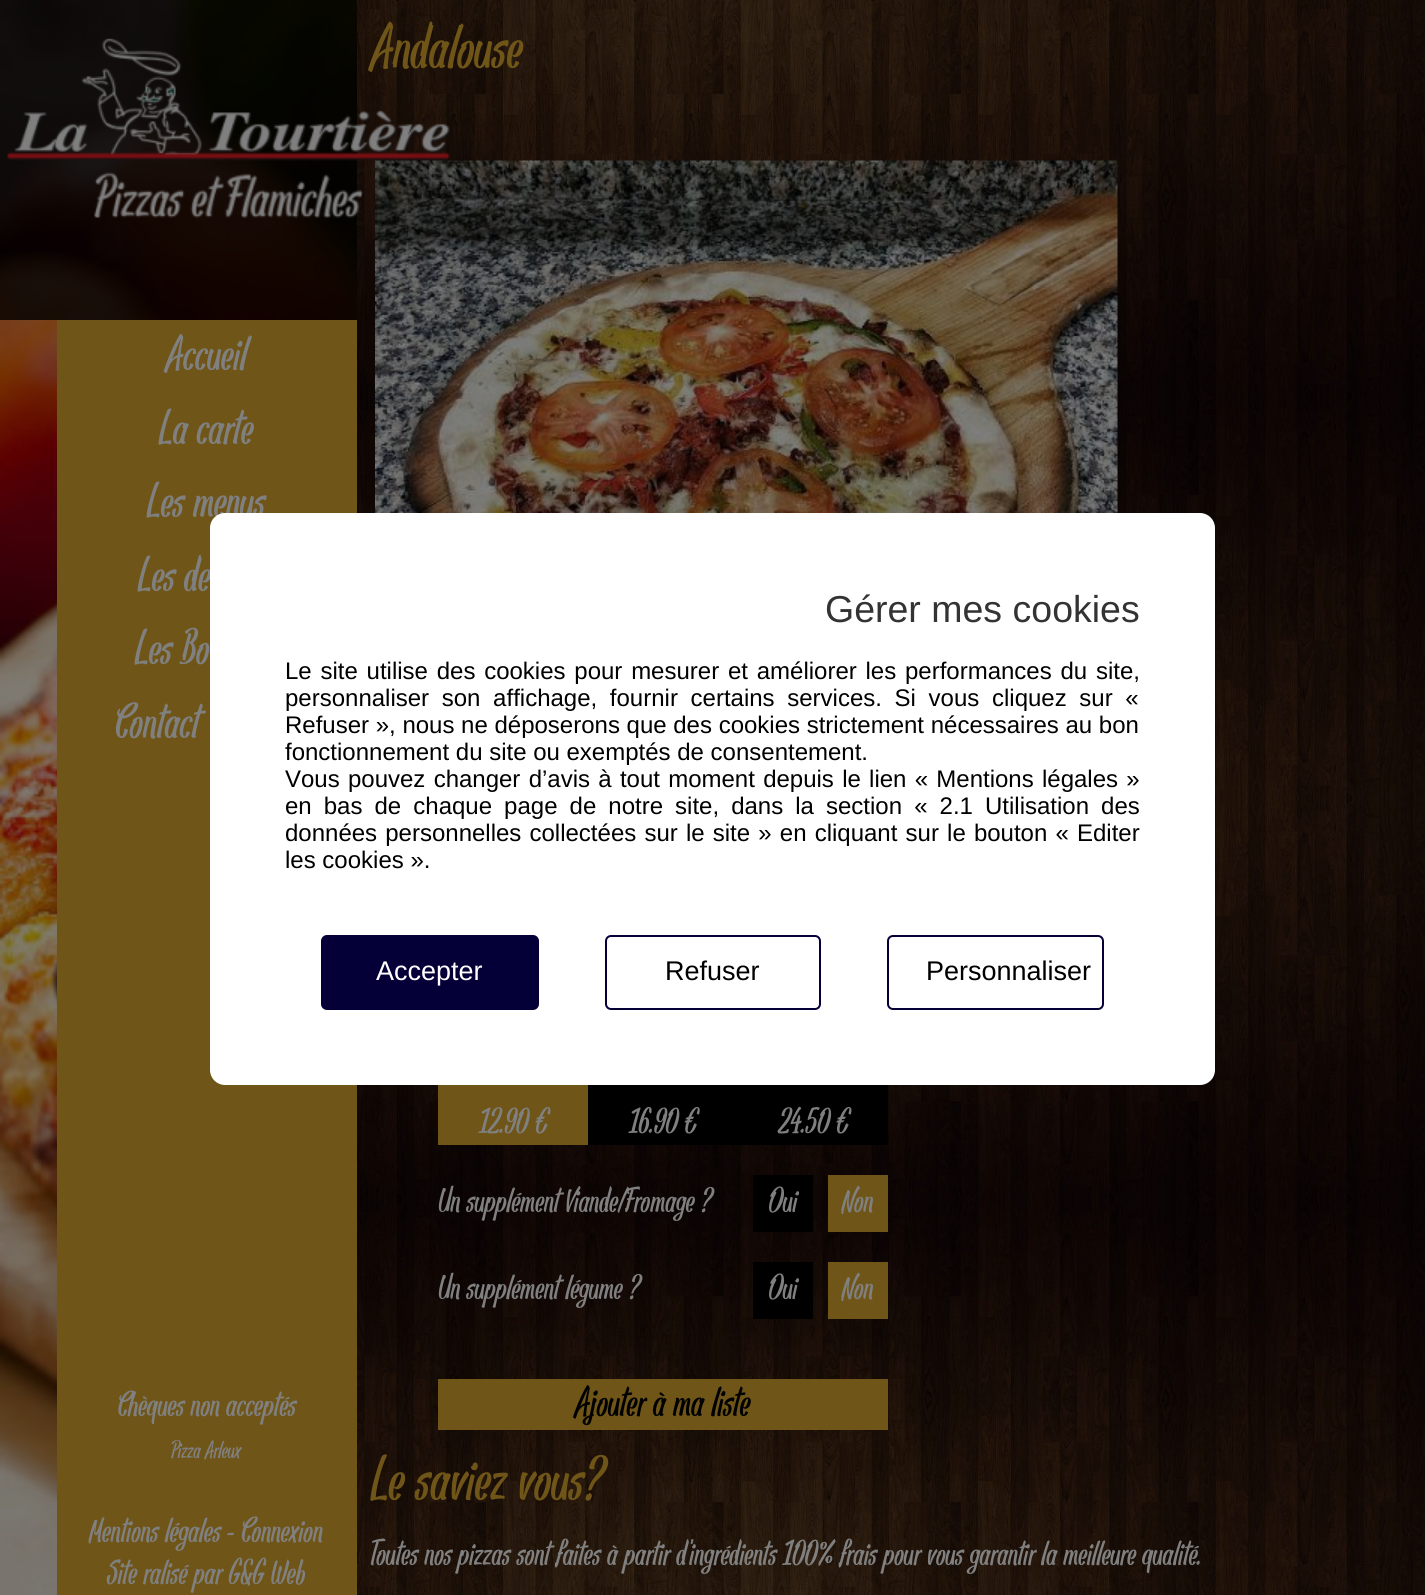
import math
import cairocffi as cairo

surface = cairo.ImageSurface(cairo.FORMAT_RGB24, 1425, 1595)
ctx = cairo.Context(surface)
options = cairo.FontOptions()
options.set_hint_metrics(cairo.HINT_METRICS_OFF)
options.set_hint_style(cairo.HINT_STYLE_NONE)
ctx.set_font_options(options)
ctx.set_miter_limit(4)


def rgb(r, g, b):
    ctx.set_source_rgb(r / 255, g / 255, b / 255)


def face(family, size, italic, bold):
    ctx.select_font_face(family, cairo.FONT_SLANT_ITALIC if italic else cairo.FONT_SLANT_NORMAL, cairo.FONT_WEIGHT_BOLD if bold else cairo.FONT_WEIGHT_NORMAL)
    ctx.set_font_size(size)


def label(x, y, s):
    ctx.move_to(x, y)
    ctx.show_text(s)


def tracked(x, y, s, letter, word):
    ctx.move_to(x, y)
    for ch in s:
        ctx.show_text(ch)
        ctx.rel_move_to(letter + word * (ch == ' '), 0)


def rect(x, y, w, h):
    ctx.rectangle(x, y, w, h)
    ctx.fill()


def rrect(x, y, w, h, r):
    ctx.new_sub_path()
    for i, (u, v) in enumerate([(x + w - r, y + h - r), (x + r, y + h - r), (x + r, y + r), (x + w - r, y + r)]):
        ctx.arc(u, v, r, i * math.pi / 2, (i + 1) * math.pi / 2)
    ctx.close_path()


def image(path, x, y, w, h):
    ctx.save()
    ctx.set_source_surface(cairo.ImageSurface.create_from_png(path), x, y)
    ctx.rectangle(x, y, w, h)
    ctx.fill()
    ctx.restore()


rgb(255, 255, 255)
ctx.paint()
image('image0.png', 357, 0, 1068, 1595)
image('image1.png', 0, 0, 357, 1595)
ctx.set_source_rgba(0, 0, 0, 0.8)
rect(0, 0, 357, 320)
image('image2.png', 7, 38, 443, 180)
rgb(111, 85, 23)
rect(57, 320, 300, 1275)
face('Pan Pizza', 52.5, 0, 0)
rgb(128, 128, 128)
label(166, 370, 'Accueil')
label(159, 444, 'La carte')
label(147, 517, 'Les menus')
label(138, 591, 'Les de')
label(135, 664, 'Les Bo')
label(114, 738, 'Contact')
face('Pan Pizza', 37.5, 0, 0)
label(117, 1416, 'Chèques non acceptés')
face('Pan Pizza', 26, 0, 0)
label(171, 1458, 'Pizza Arleux')
face('Pan Pizza', 37.5, 0, 0)
label(89, 1542, 'Mentions légales - Connexion')
label(107, 1584, 'Site ralisé par G&G Web')
face('Pan Pizza', 67.5, 0, 0)
rgb(111, 85, 23)
label(371, 68, 'Andalouse')
image('image3.png', 375, 160, 743, 353)
rect(438, 1085, 150, 60)
face('Pan Pizza', 37.5, 0, 0)
rgb(128, 128, 128)
label(479, 1133, '12.90 €')
rgb(0, 0, 0)
rect(588, 1085, 300, 60)
rgb(128, 128, 128)
label(629, 1133, '16.90 €')
label(778, 1133, '24.50 €')
label(438, 1212, 'Un supplément Viande/Fromage ?')
rgb(0, 0, 0)
rect(753, 1175, 60, 57)
rgb(128, 128, 128)
label(768, 1212, 'Oui')
rgb(111, 85, 23)
rect(828, 1175, 60, 57)
rgb(128, 128, 128)
label(842, 1212, 'Non')
label(438, 1299, 'Un supplément légume ?')
rgb(0, 0, 0)
rect(753, 1262, 60, 57)
rgb(128, 128, 128)
label(768, 1299, 'Oui')
rgb(111, 85, 23)
rect(828, 1262, 60, 57)
rgb(128, 128, 128)
label(842, 1299, 'Non')
rgb(111, 85, 23)
rect(438, 1379, 450, 51)
face('Pan Pizza', 45, 0, 0)
rgb(0, 0, 0)
label(575, 1416, 'Ajouter à ma liste')
face('Pan Pizza', 67.5, 0, 0)
rgb(111, 85, 23)
label(371, 1500, 'Le saviez vous?')
face('Pan Pizza', 37.5, 0, 0)
rgb(128, 128, 128)
label(371, 1565, 'Toutes nos pizzas sont faites à partir d\'ingrédients 100% frais pour vous garantir la meilleure qualité.')
rgb(255, 255, 255)
rrect(210, 513, 1005, 572, 15)
ctx.fill()
face('Liberation Sans', 37.5, 0, 0)
rgb(51, 51, 51)
label(825, 622, 'Gérer mes cookies')
face('Liberation Sans', 24, 0, 0)
rgb(0, 0, 0)
tracked(285, 679, 'Le site utilise des cookies pour mesurer et améliorer les performances du site,', 0, 2.1)
tracked(285, 706, 'personnaliser son affichage, fournir certains services. Si vous cliquez sur «', 0, 6)
label(285, 733, 'Refuser », nous ne déposerons que des cookies strictement nécessaires au bon')
label(285, 760, 'fonctionnement du site ou exemptés de consentement.')
tracked(285, 787, 'Vous pouvez changer d’avis à tout moment depuis le lien « Mentions légales »', 0, 1.6)
tracked(285, 814, 'en bas de chaque page de notre site, dans la section « 2.1 Utilisation des', 0, 5.4)
tracked(285, 841, 'données personnelles collectées sur le site » en cliquant sur le bouton « Editer', 0, 1.5)
label(285, 868, 'les cookies ».')
rgb(4, 0, 55)
rrect(322, 936, 216, 73, 5)
ctx.fill_preserve()
ctx.stroke()
face('Liberation Sans', 27, 0, 0)
rgb(255, 255, 255)
label(376, 980, 'Accepter')
rrect(606, 936, 214, 73, 5)
rgb(4, 0, 55)
ctx.stroke()
rgb(0, 0, 0)
label(665, 980, 'Refuser')
rrect(888, 936, 215, 73, 5)
rgb(4, 0, 55)
ctx.stroke()
rgb(0, 0, 0)
label(926, 980, 'Personnaliser')
surface.write_to_png('render.png')
